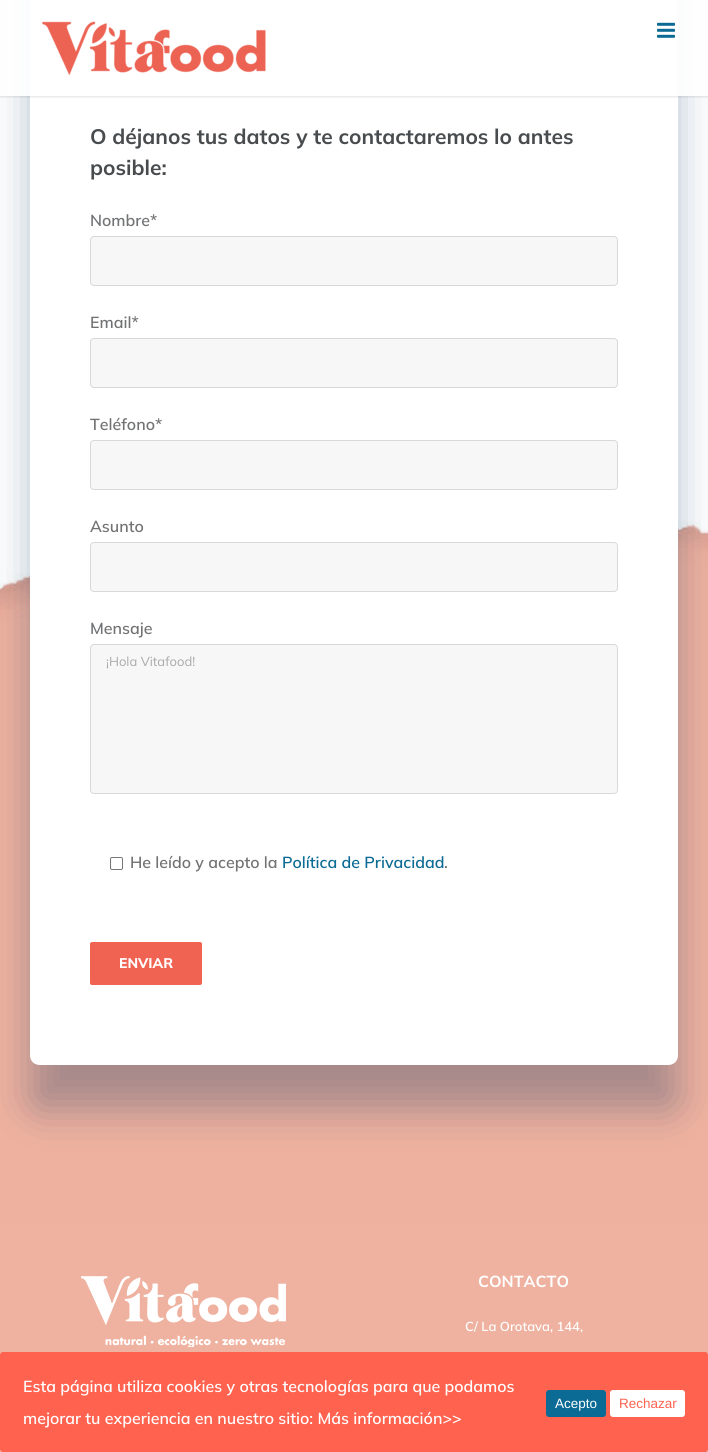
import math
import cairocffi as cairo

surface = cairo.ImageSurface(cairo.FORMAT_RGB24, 708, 1452)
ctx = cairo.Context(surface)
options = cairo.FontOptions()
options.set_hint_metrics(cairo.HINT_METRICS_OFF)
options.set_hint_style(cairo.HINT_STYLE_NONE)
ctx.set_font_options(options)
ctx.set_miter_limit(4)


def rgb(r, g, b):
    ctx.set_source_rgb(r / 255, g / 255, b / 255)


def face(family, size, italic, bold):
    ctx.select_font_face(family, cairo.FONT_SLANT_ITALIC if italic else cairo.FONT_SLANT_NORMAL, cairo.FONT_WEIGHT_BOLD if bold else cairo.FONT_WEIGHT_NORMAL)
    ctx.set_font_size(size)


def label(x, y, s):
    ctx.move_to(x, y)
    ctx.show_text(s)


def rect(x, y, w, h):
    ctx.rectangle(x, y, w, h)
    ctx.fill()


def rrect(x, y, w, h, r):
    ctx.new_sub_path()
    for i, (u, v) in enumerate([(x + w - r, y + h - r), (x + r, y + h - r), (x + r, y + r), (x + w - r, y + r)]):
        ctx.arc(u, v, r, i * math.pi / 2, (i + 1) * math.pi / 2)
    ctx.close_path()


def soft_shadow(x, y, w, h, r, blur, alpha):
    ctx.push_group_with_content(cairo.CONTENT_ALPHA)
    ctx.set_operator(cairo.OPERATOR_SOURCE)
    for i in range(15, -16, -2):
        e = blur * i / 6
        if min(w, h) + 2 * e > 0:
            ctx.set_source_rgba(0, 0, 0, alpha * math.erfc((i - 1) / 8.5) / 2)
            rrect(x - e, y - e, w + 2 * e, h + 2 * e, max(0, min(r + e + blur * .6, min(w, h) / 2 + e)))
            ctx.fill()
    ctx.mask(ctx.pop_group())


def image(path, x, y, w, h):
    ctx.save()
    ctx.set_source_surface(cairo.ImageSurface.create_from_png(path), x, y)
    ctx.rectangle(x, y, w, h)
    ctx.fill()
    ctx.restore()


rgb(255, 255, 255)
ctx.paint()
image('image2.png', 0, 521, 708, 704)
rgb(0, 44, 91)
soft_shadow(30, -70, 648, 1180, 10, 20, 0.3)
rgb(255, 255, 255)
ctx.new_path()
ctx.move_to(40, -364)
ctx.line_to(668, -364)
ctx.curve_to(674, -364, 678, -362, 678, -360)
ctx.line_to(678, 1055)
ctx.curve_to(678, 1061, 674, 1065, 668, 1065)
ctx.line_to(40, 1065)
ctx.curve_to(34, 1065, 30, 1061, 30, 1055)
ctx.line_to(30, -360)
ctx.curve_to(30, -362, 34, -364, 40, -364)
ctx.close_path()
ctx.fill()
ctx.save()
ctx.rectangle(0, 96, 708, 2)
ctx.clip()
rgb(0, 0, 0)
soft_shadow(0, 1, 708, 96, 0, 1.5, 0.12)
ctx.restore()
ctx.set_source_rgba(1, 1, 1, 0.9)
rect(0, 0, 708, 96)
image('image0.png', 42, 21, 224, 55)
image('image1.png', 657, 22, 18, 16)
face('Mulish', 21, 0, 1)
rgb(73, 76, 78)
label(90, 144, 'O déjanos tus datos y te contactaremos lo antes')
label(90, 175, 'posible:')
face('Mulish SemiBold', 16, 0, 0)
rgb(113, 114, 116)
label(90, 226, 'Nombre*')
rgb(247, 247, 247)
rrect(90.5, 236.5, 527, 49, 3.5)
ctx.fill_preserve()
rgb(216, 216, 216)
ctx.set_line_width(1)
ctx.stroke()
rgb(113, 114, 116)
label(90, 328, 'Email*')
rgb(247, 247, 247)
rrect(90.5, 338.5, 527, 49, 3.5)
ctx.fill_preserve()
rgb(216, 216, 216)
ctx.stroke()
rgb(113, 114, 116)
label(90, 430, 'Teléfono*')
rgb(247, 247, 247)
rrect(90.5, 440.5, 527, 49, 3.5)
ctx.fill_preserve()
rgb(216, 216, 216)
ctx.stroke()
rgb(113, 114, 116)
label(90, 532, 'Asunto')
rgb(247, 247, 247)
rrect(90.5, 542.5, 527, 49, 3.5)
ctx.fill_preserve()
rgb(216, 216, 216)
ctx.stroke()
rgb(113, 114, 116)
label(90, 634, 'Mensaje')
rgb(247, 247, 247)
rrect(90.5, 644.5, 527, 149, 3.5)
ctx.fill_preserve()
rgb(216, 216, 216)
ctx.stroke()
face('Mulish', 13, 0, 0)
rgb(170, 169, 169)
label(106, 666, '¡Hola Vitafood!')
rrect(110.5, 857.5, 12, 12, 1.5)
rgb(118, 118, 118)
ctx.stroke()
face('Mulish SemiBold', 16, 0, 0)
rgb(113, 114, 116)
label(130, 868, 'He leído y acepto la')
rgb(12, 107, 148)
label(282, 868, 'Política de Privacidad')
rgb(113, 114, 116)
label(444, 868, '.')
rgb(240, 98, 81)
rrect(90, 942, 112, 43, 2)
ctx.fill()
face('Mulish ExtraBold', 14, 0, 0)
rgb(255, 255, 255)
label(119, 968, 'ENVIAR')
rgb(239, 178, 160)
rect(0, 1225, 708, 227)
image('image3.png', 81, 1276, 205, 71)
face('Mulish', 16, 0, 1)
rgb(255, 255, 255)
label(478, 1287, 'CONTACTO')
face('Mulish SemiBold', 13, 0, 0)
label(465, 1331, 'C/ La Orotava, 144,')
rgb(255, 98, 79)
rrect(1.5, 1353.5, 705, 97, 1.5)
ctx.fill_preserve()
ctx.set_line_width(3)
ctx.stroke()
face('Mulish SemiBold', 16, 0, 0)
rgb(255, 255, 255)
label(23, 1392, 'Esta página utiliza cookies y otras tecnologías para que podamos')
label(23, 1424, 'mejorar tu experiencia en nuestro sitio: Más información>>')
rgb(12, 107, 148)
rrect(546, 1390, 60, 27, 3)
ctx.fill()
face('Liberation Sans', 13.5, 0, 0)
rgb(255, 255, 255)
label(555, 1408, 'Acepto')
rrect(610, 1390, 75, 27, 3)
ctx.fill()
rgb(255, 98, 79)
label(619, 1408, 'Rechazar')
surface.write_to_png('render.png')
